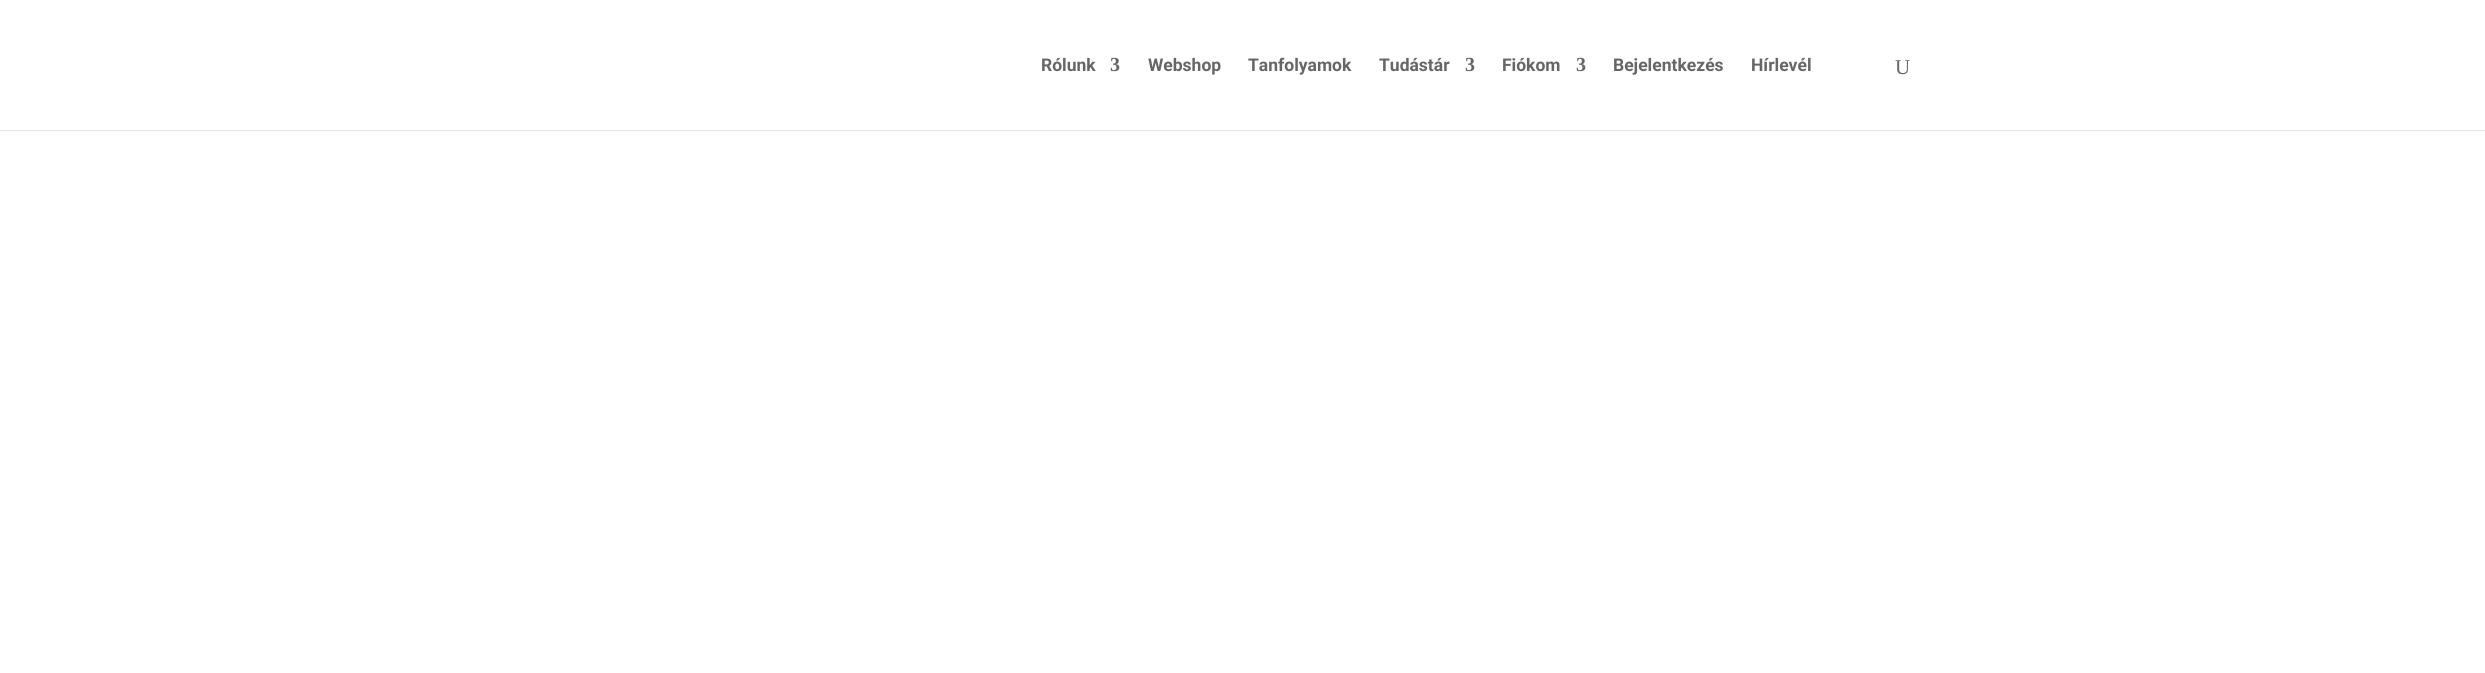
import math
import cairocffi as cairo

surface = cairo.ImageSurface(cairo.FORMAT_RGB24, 2485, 673)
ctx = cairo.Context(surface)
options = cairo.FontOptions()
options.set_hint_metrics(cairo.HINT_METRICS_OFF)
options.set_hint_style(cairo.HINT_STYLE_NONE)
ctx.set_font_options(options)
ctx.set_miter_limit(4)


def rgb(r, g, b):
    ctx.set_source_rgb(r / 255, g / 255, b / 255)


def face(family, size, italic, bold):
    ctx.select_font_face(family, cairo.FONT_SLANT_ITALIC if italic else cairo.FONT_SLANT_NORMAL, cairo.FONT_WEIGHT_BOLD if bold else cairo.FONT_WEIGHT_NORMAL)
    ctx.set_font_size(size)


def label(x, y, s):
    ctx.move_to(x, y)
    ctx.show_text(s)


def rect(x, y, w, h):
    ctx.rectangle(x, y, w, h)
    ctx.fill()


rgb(255, 255, 255)
ctx.paint()
rgb(230, 230, 230)
rect(0, 130, 2485, 1)
face('Roboto', 17.5, 0, 1)
rgb(102, 102, 102)
label(1041, 71, 'Rólunk')
face('Liberation Serif', 20, 0, 1)
label(1110, 71, '3')
face('Roboto', 17.5, 0, 1)
label(1148, 71, 'Webshop')
label(1248, 71, 'Tanfolyamok')
label(1379, 71, 'Tudástár')
face('Liberation Serif', 20, 0, 1)
label(1465, 71, '3')
face('Roboto', 17.5, 0, 1)
label(1502, 71, 'Fiókom')
face('Liberation Serif', 20, 0, 1)
label(1576, 71, '3')
face('Roboto', 17.5, 0, 1)
label(1613, 71, 'Bejelentkezés')
label(1751, 71, 'Hírlevél')
face('Liberation Serif', 21, 0, 0)
label(1895, 74, 'U')
surface.write_to_png('render.png')
